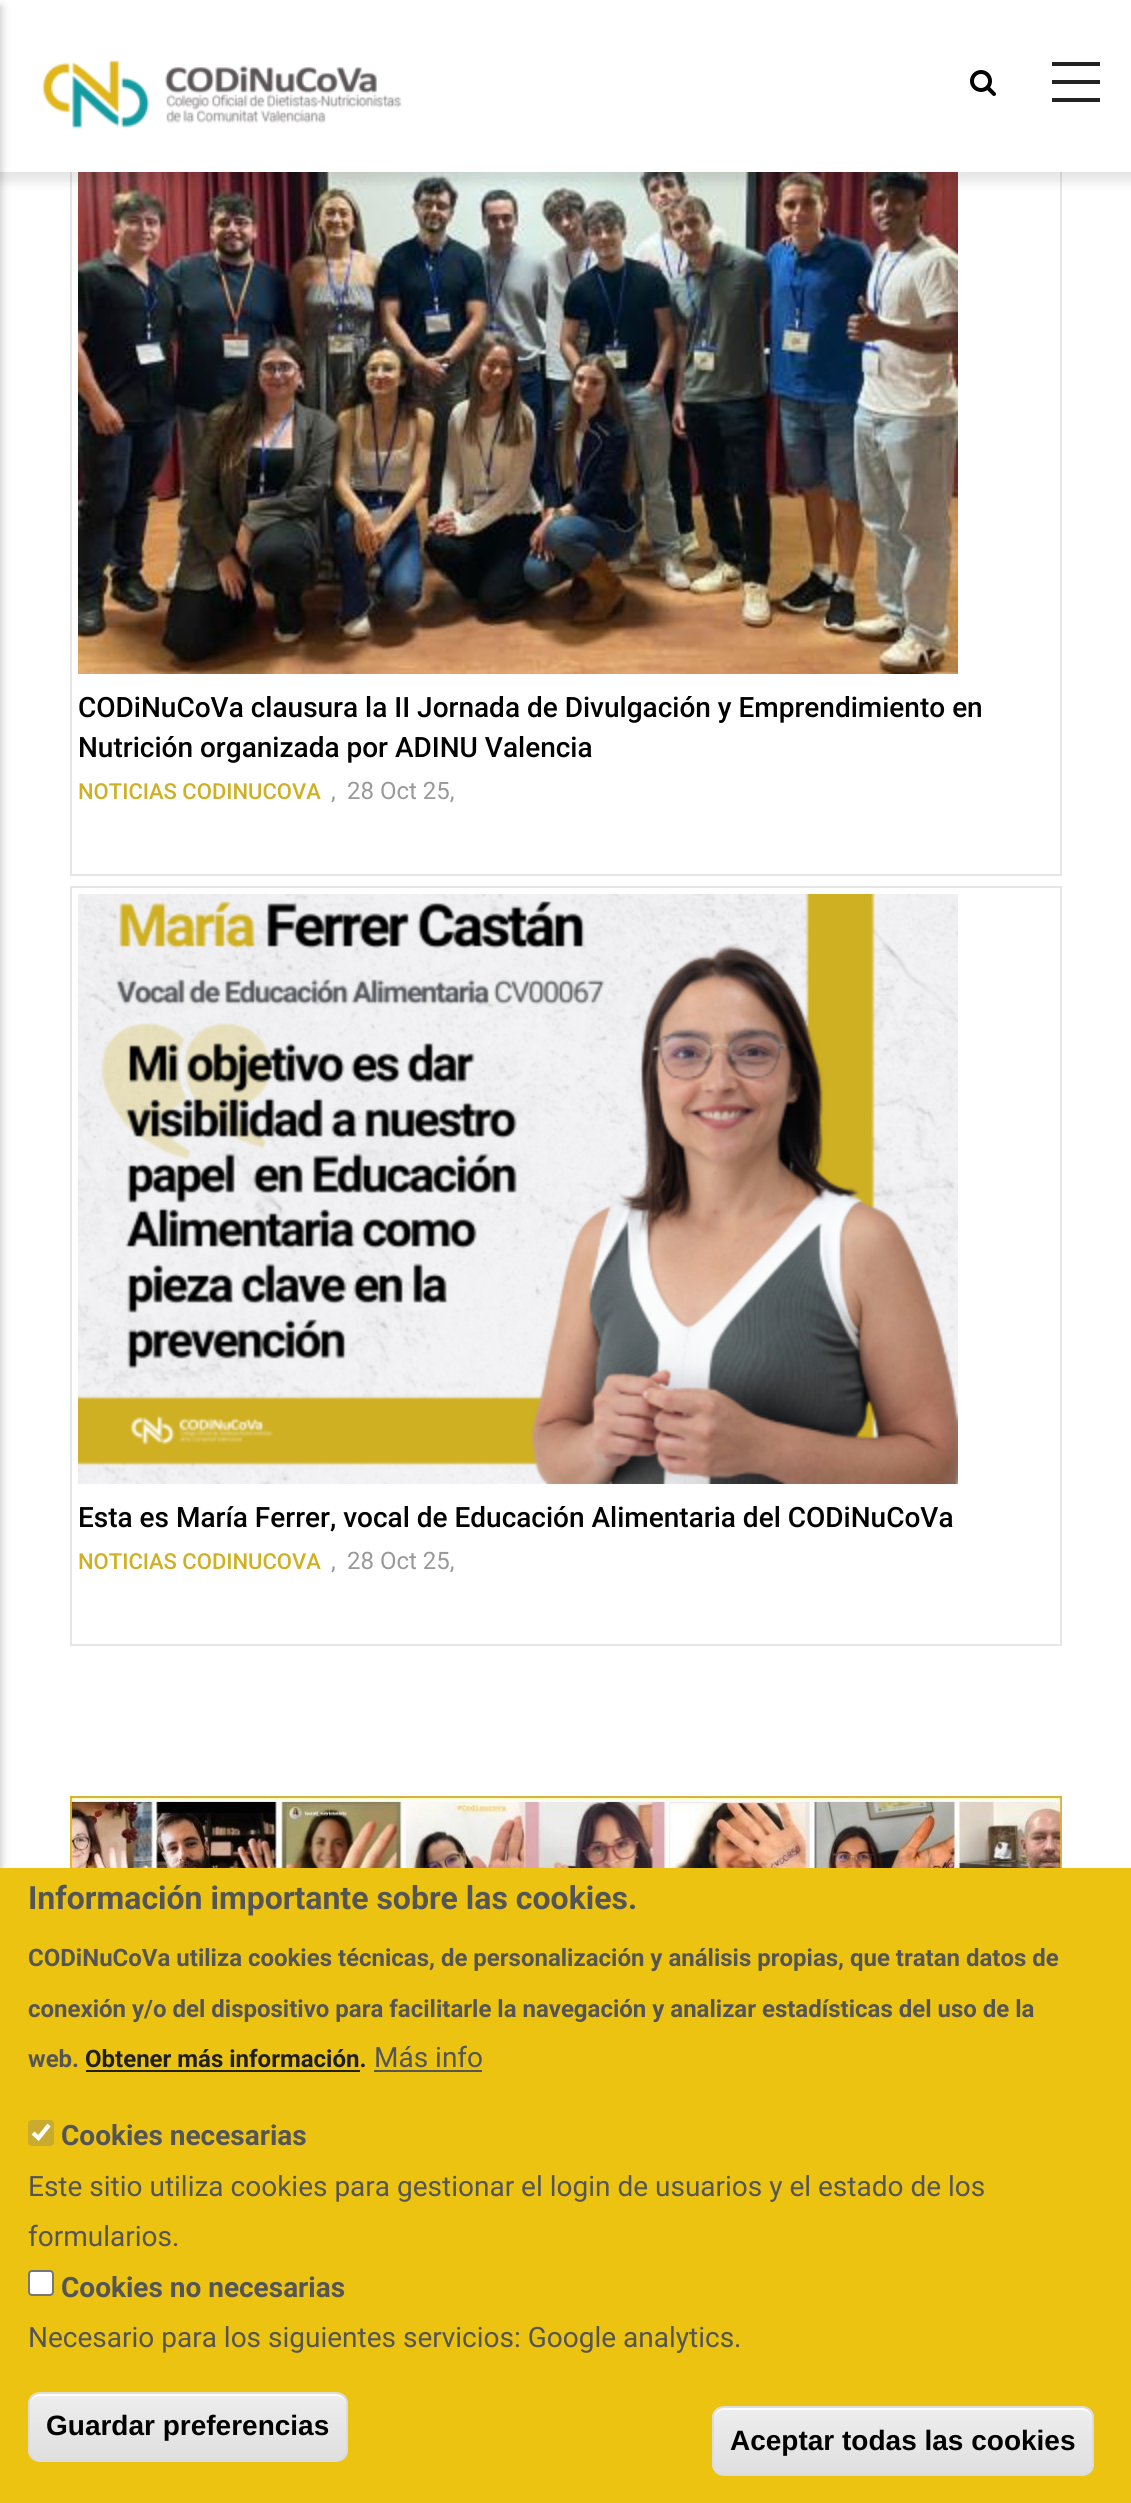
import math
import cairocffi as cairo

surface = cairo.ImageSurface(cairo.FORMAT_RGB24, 1131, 2503)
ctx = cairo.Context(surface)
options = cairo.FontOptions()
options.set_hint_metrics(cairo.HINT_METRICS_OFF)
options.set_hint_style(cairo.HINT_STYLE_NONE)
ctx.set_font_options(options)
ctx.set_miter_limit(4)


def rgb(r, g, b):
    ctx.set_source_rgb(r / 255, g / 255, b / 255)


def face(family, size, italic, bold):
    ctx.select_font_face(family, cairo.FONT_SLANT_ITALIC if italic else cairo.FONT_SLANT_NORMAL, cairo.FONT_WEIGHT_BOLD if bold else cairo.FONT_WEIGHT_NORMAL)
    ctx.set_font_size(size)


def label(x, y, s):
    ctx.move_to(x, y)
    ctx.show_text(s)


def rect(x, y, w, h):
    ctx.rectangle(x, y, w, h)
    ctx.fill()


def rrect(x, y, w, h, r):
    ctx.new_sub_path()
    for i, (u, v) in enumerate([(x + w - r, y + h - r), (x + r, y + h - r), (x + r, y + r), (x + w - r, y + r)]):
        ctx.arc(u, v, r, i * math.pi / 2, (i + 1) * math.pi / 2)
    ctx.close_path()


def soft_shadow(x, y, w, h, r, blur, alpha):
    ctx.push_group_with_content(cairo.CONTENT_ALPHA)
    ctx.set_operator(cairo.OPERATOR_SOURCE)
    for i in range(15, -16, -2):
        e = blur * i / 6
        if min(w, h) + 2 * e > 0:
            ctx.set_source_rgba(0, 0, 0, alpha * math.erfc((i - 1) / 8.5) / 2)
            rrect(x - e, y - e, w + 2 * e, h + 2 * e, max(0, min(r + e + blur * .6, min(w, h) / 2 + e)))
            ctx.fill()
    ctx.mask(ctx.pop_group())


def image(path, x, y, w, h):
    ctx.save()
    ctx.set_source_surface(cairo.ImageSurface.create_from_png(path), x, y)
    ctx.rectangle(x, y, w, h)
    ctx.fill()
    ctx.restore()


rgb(255, 255, 255)
ctx.paint()
ctx.rectangle(71, 77, 990, 798)
rgb(230, 230, 230)
ctx.stroke()
image('image2.png', 78, 172, 880, 502)
rgb(0, 0, 0)
soft_shadow(-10, -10, 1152, 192, 0, 5, 0.1)
rgb(255, 255, 255)
rect(0, 0, 1131, 172)
rgb(0, 0, 0)
soft_shadow(-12, 6, 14, 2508, 0, 4, 0.2)
image('image0.png', 970, 70, 26, 26)
rgb(34, 34, 34)
rect(1052, 62, 48, 4)
rect(1052, 80, 48, 4)
rect(1052, 98, 48, 4)
image('image1.png', 42, 59, 360, 70)
face('Roboto Medium', 28, 0, 0)
rgb(0, 0, 0)
label(78, 717, 'CODiNuCoVa clausura la II Jornada de Divulgación y Emprendimiento en')
label(78, 757, 'Nutrición organizada por ADINU Valencia')
face('Roboto Medium', 22, 0, 0)
rgb(207, 176, 35)
label(78, 799, 'NOTICIAS CODINUCOVA')
face('Roboto', 24, 0, 0)
rgb(153, 153, 153)
label(331, 799, ',')
label(347, 799, '28 Oct 25,')
ctx.rectangle(71, 887, 990, 758)
rgb(230, 230, 230)
ctx.stroke()
image('image3.png', 78, 894, 880, 590)
face('Roboto Medium', 28, 0, 0)
rgb(0, 0, 0)
label(78, 1527, 'Esta es María Ferrer, vocal de Educación Alimentaria del CODiNuCoVa')
face('Roboto Medium', 22, 0, 0)
rgb(207, 176, 35)
label(78, 1569, 'NOTICIAS CODINUCOVA')
face('Roboto', 24, 0, 0)
rgb(153, 153, 153)
label(331, 1569, ',')
label(347, 1569, '28 Oct 25,')
image('image4.png', 70, 1796, 992, 72)
rgb(236, 195, 17)
rect(0, 1868, 1131, 635)
face('Roboto', 32, 0, 1)
rgb(85, 85, 85)
label(28, 1909, 'Información importante sobre las cookies.')
face('Roboto', 24, 0, 1)
label(28, 1966, 'CODiNuCoVa utiliza cookies técnicas, de personalización y análisis propias, que tratan datos de')
label(28, 2017, 'conexión y/o del dispositivo para facilitarle la navegación y analizar estadísticas del uso de la')
label(28, 2067, 'web.')
rgb(31, 31, 31)
label(85, 2067, 'Obtener más información.')
rect(86, 2070, 274, 2)
face('Roboto', 28, 0, 0)
rgb(85, 85, 85)
label(374, 2067, 'Más info')
rect(374, 2070, 108, 2)
rgb(201, 172, 47)
rrect(28, 2120, 26, 26, 4)
ctx.fill()
ctx.new_path()
ctx.move_to(33, 2133)
ctx.line_to(38.5, 2138)
ctx.line_to(49, 2125)
rgb(255, 255, 255)
ctx.set_line_width(4.2)
ctx.stroke()
face('Roboto', 28, 0, 1)
rgb(85, 85, 85)
label(61, 2145, 'Cookies necesarias')
face('Roboto', 28, 0, 0)
label(28, 2196, 'Este sitio utiliza cookies para gestionar el login de usuarios y el estado de los')
label(28, 2246, 'formularios.')
rgb(255, 255, 255)
rrect(29, 2271, 24, 24, 3)
ctx.fill_preserve()
rgb(118, 118, 118)
ctx.set_line_width(2)
ctx.stroke()
face('Roboto', 28, 0, 1)
rgb(85, 85, 85)
label(61, 2297, 'Cookies no necesarias')
face('Roboto', 28, 0, 0)
label(28, 2347, 'Necesario para los siguientes servicios: Google analytics.')
ctx.save()
rrect(28, 2392, 320, 70, 12)
ctx.clip()
gradient = cairo.LinearGradient(188, 2394, 188, 2460)
gradient.add_color_stop_rgba(0.05, 0.929, 0.929, 0.929, 1)
gradient.add_color_stop_rgba(1, 0.875, 0.875, 0.875, 1)
ctx.set_source(gradient)
rect(28, 2394, 320, 66)
ctx.restore()
rgb(255, 255, 255)
ctx.new_path()
ctx.move_to(40, 2396)
ctx.line_to(336, 2396)
ctx.curve_to(342, 2396, 346, 2400, 346, 2406)
ctx.line_to(346, 2404)
ctx.curve_to(346, 2398, 342, 2394, 336, 2394)
ctx.line_to(40, 2394)
ctx.curve_to(34, 2394, 30, 2398, 30, 2404)
ctx.line_to(30, 2406)
ctx.curve_to(30, 2400, 34, 2396, 40, 2396)
ctx.close_path()
ctx.fill()
rrect(29, 2393, 318, 68, 11)
rgb(220, 220, 220)
ctx.stroke()
face('Liberation Sans', 28, 0, 1)
rgb(0, 0, 0)
label(46, 2435, 'Guardar preferencias')
ctx.save()
rrect(712, 2406, 382, 70, 12)
ctx.clip()
gradient = cairo.LinearGradient(903, 2408, 903, 2474)
gradient.add_color_stop_rgba(0.05, 0.929, 0.929, 0.929, 1)
gradient.add_color_stop_rgba(1, 0.875, 0.875, 0.875, 1)
ctx.set_source(gradient)
rect(712, 2408, 382, 66)
ctx.restore()
rgb(255, 255, 255)
ctx.new_path()
ctx.move_to(724, 2410)
ctx.line_to(1082, 2410)
ctx.curve_to(1088, 2410, 1092, 2414, 1092, 2420)
ctx.curve_to(1092, 2415, 1090, 2409, 1084, 2408)
ctx.line_to(722, 2408)
ctx.curve_to(716, 2409, 714, 2415, 714, 2420)
ctx.curve_to(714, 2414, 718, 2410, 724, 2410)
ctx.close_path()
ctx.fill()
rrect(713, 2407, 380, 68, 11)
rgb(220, 220, 220)
ctx.stroke()
rgb(0, 0, 0)
label(730, 2450, 'Aceptar todas las cookies')
surface.write_to_png('render.png')
